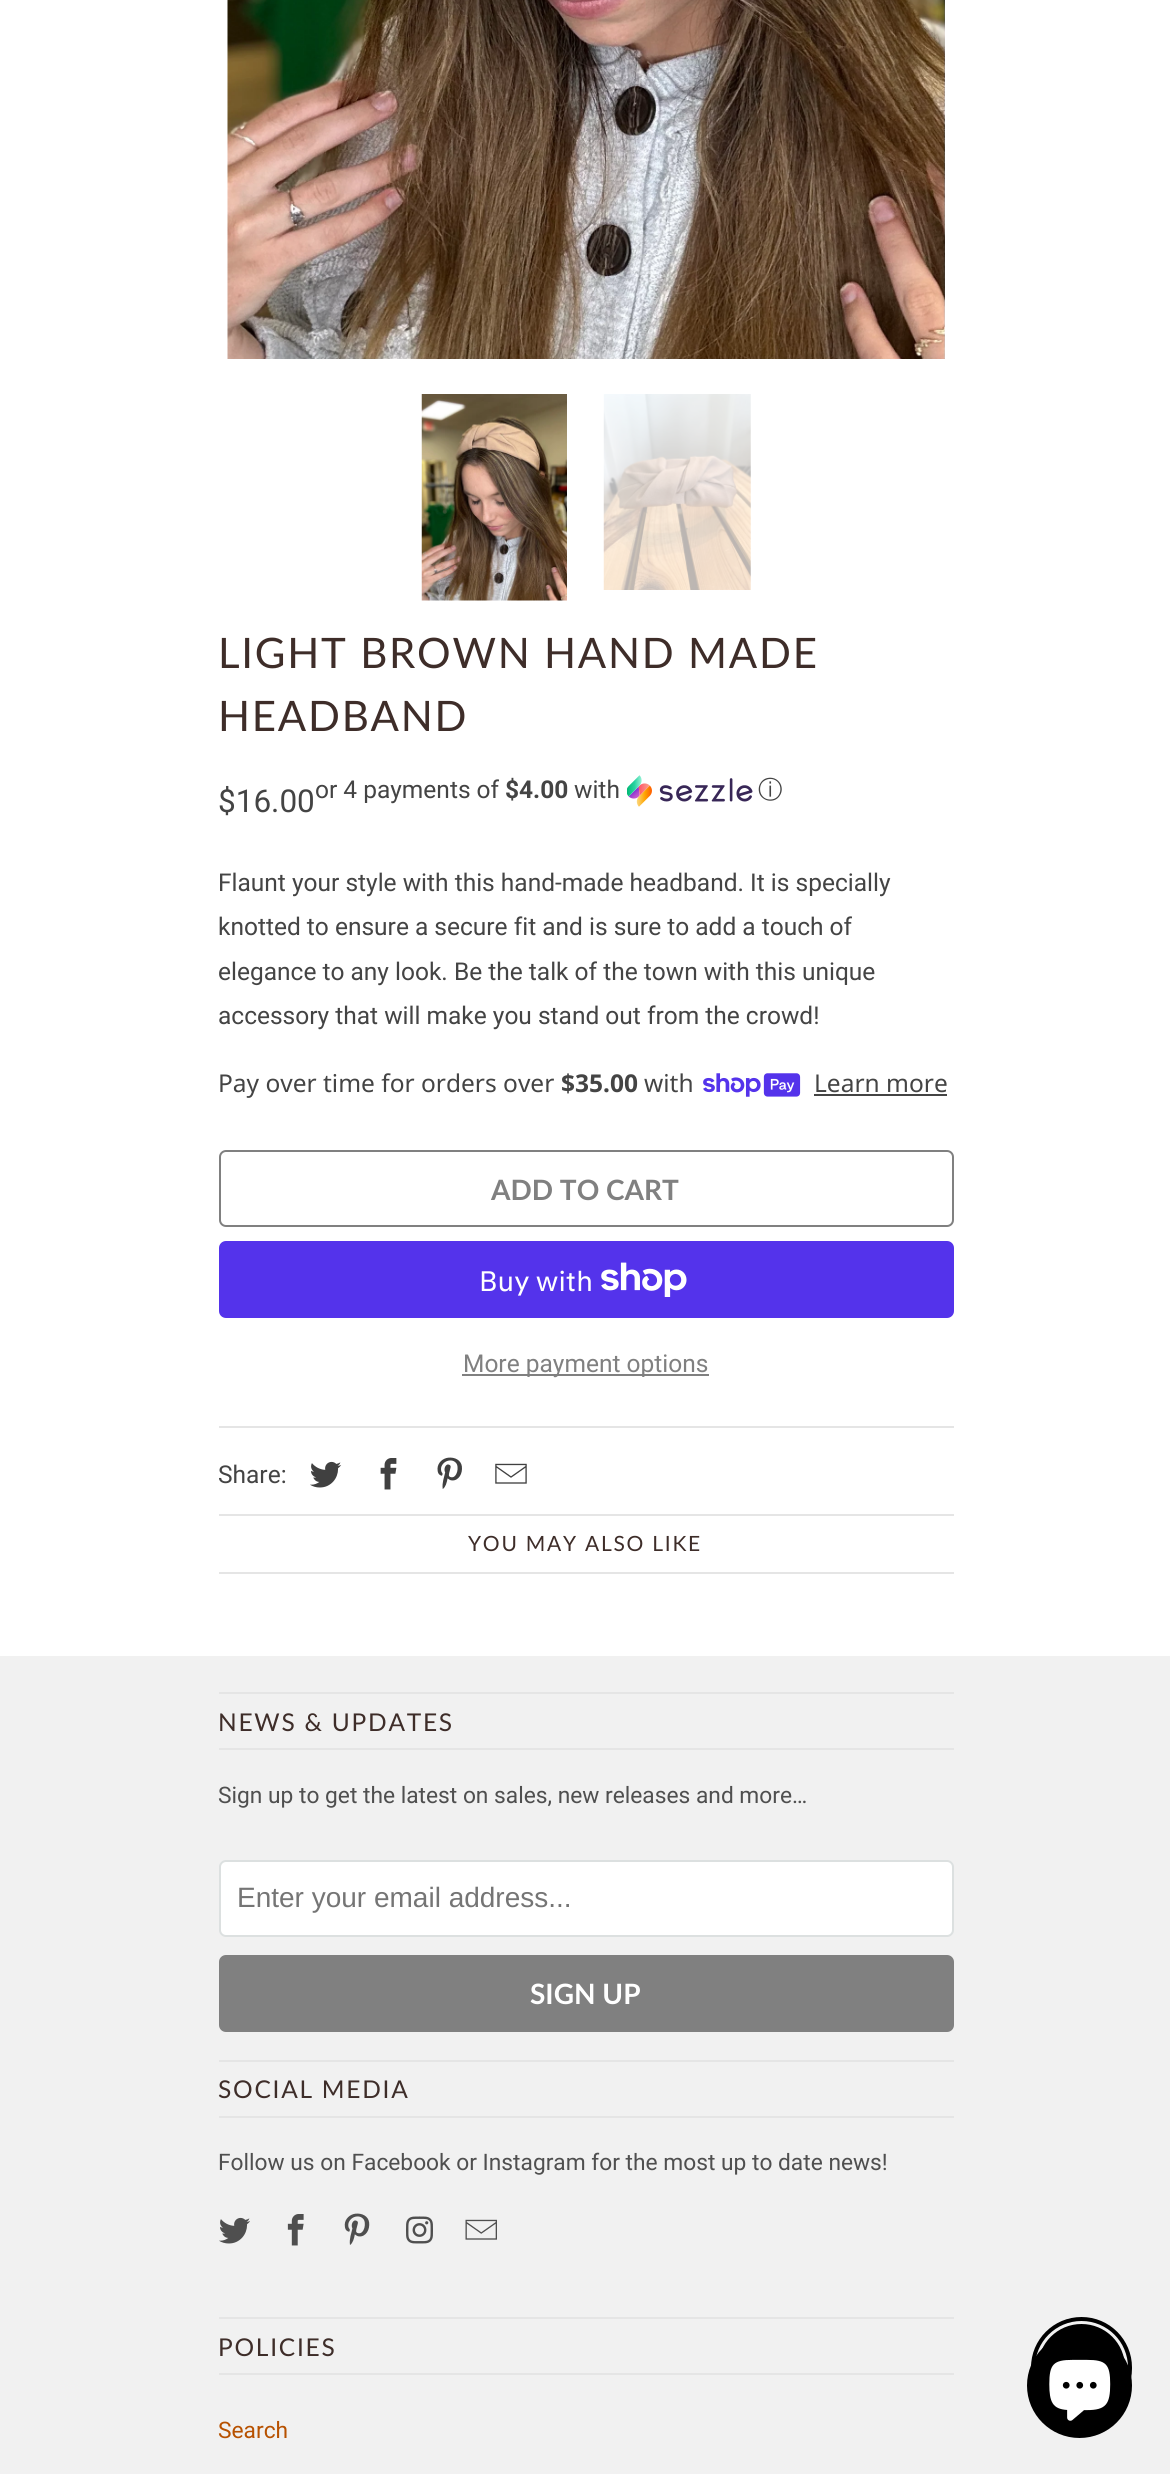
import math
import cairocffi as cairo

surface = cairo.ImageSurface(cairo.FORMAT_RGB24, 1170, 2474)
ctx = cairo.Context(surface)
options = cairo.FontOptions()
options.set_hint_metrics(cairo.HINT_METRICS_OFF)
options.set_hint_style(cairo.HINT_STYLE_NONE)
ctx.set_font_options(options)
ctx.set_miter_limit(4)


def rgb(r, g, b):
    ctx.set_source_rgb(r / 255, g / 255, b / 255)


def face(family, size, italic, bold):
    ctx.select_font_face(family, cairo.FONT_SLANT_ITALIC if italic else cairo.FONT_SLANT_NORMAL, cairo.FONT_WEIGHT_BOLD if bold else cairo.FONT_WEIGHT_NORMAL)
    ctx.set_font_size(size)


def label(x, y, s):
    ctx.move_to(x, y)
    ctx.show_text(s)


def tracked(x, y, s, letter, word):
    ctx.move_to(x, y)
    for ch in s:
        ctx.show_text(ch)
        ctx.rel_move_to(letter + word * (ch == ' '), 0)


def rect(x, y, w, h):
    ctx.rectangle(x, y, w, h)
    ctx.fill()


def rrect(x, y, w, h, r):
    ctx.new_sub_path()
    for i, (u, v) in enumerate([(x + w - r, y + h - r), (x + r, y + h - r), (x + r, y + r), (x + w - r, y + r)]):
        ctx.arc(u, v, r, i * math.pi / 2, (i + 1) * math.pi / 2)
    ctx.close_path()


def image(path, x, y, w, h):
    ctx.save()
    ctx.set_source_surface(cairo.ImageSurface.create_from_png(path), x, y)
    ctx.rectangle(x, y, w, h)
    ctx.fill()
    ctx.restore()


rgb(255, 255, 255)
ctx.paint()
image('image0.png', 227, 0, 718, 359)
image('image1.png', 421, 394, 146, 207)
image('image2.png', 603, 394, 148, 196)
face('Lato', 42, 0, 0)
rgb(62, 45, 41)
tracked(218, 668, 'LIGHT BROWN HAND MADE', 1.75, 0)
tracked(218, 731, 'HEADBAND', 1.75, 0)
face('Roboto', 31.5, 0, 0)
rgb(68, 68, 68)
label(218, 812, '$16.00')
face('Roboto', 24.5, 0, 0)
label(315, 798, 'or 4 payments of')
face('Roboto', 24.5, 0, 1)
label(505, 798, '$4.00')
face('Roboto', 24.5, 0, 0)
label(574, 798, 'with')
image('image3.png', 627, 775, 126, 32)
face('WenQuanYi Zen Hei Medium', 24.5, 0, 0)
label(758, 798, 'ⓘ')
face('Roboto', 24.5, 0, 0)
label(218, 891, 'Flaunt your style with this hand-made headband. It is specially')
label(218, 935, 'knotted to ensure a secure fit and is sure to add a touch of')
label(218, 980, 'elegance to any look. Be the talk of the town with this unique')
label(218, 1024, 'accessory that will make you stand out from the crowd!')
face('Noto Sans', 24.5, 0, 0)
label(218, 1092, 'Pay over time for orders over')
face('Noto Sans', 24.5, 0, 1)
label(561, 1092, '$35.00')
face('Noto Sans', 24.5, 0, 0)
label(644, 1092, 'with')
image('image4.png', 703, 1073, 98, 24)
label(814, 1092, 'Learn more')
rect(814, 1094, 133, 2)
rrect(220, 1151, 733, 75, 6)
rgb(128, 128, 128)
ctx.stroke()
face('Lato', 28, 0, 1)
label(491, 1200, 'ADD TO CART')
rgb(84, 51, 235)
rrect(219, 1241, 735, 77, 7)
ctx.fill()
face('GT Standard', 28, 0, 0)
rgb(255, 255, 255)
label(479, 1291, 'Buy with')
image('image5.png', 601, 1262, 86, 35)
rgb(128, 128, 128)
rect(462, 1374, 247, 2)
face('Roboto', 24.5, 0, 0)
label(463, 1372, 'More payment options')
rgb(229, 229, 229)
rect(219, 1426, 735, 2)
rgb(68, 68, 68)
label(218, 1483, 'Share:')
image('image6.png', 310, 1461, 32, 27)
image('image7.png', 380, 1458, 17, 32)
image('image8.png', 437, 1457, 25, 32)
image('image9.png', 495, 1463, 32, 21)
rgb(229, 229, 229)
rect(219, 1514, 735, 2)
rect(219, 1572, 735, 2)
face('Lato', 21, 0, 0)
rgb(62, 45, 41)
tracked(468, 1551, 'YOU MAY ALSO LIKE', 1.75, 0)
rgb(241, 241, 241)
rect(0, 1656, 1170, 818)
rgb(229, 229, 229)
rect(219, 1692, 735, 2)
rect(219, 1748, 735, 2)
face('Lato', 24.5, 0, 0)
rgb(62, 45, 41)
tracked(218, 1731, 'NEWS & UPDATES', 1.75, 0)
face('Roboto', 22.75, 0, 0)
rgb(79, 79, 79)
label(218, 1803, 'Sign up to get the latest on sales, new releases and more…')
rgb(255, 255, 255)
rrect(220, 1861, 733, 75, 6)
ctx.fill_preserve()
rgb(220, 224, 224)
ctx.stroke()
face('Liberation Sans', 28, 0, 0)
rgb(117, 117, 117)
label(237, 1907, 'Enter your email address...')
rgb(128, 128, 128)
rrect(219, 1955, 735, 77, 7)
ctx.fill()
face('Lato', 28, 0, 1)
rgb(255, 255, 255)
label(530, 2004, 'SIGN UP')
rgb(229, 229, 229)
rect(219, 2060, 735, 2)
rect(219, 2116, 735, 2)
face('Lato', 24.5, 0, 0)
rgb(62, 45, 41)
tracked(218, 2098, 'SOCIAL MEDIA', 1.75, 0)
face('Roboto', 22.75, 0, 0)
rgb(79, 79, 79)
label(218, 2170, 'Follow us on Facebook or Instagram for the most up to date news!')
image('image10.png', 219, 2217, 31, 27)
image('image11.png', 287, 2214, 17, 32)
image('image12.png', 344, 2213, 26, 32)
image('image13.png', 406, 2216, 27, 28)
image('image14.png', 465, 2219, 32, 21)
rgb(229, 229, 229)
rect(219, 2317, 735, 2)
rect(219, 2373, 735, 2)
face('Lato', 24.5, 0, 0)
rgb(62, 45, 41)
tracked(218, 2356, 'POLICIES', 1.75, 0)
face('Roboto', 22.75, 0, 0)
rgb(183, 81, 0)
label(218, 2438, 'Search')
rrect(1033, 2319, 97, 98, 48.5)
rgb(0, 0, 0)
ctx.set_line_width(4)
ctx.stroke()
rrect(1039, 2325, 85, 86, 42.5)
ctx.fill_preserve()
ctx.set_line_width(2)
ctx.stroke()
ctx.arc(1079.5, 2385.5, 52.5, 0, 2 * math.pi)
ctx.fill()
image('image15.png', 1049, 2359, 62, 62)
surface.write_to_png('render.png')
